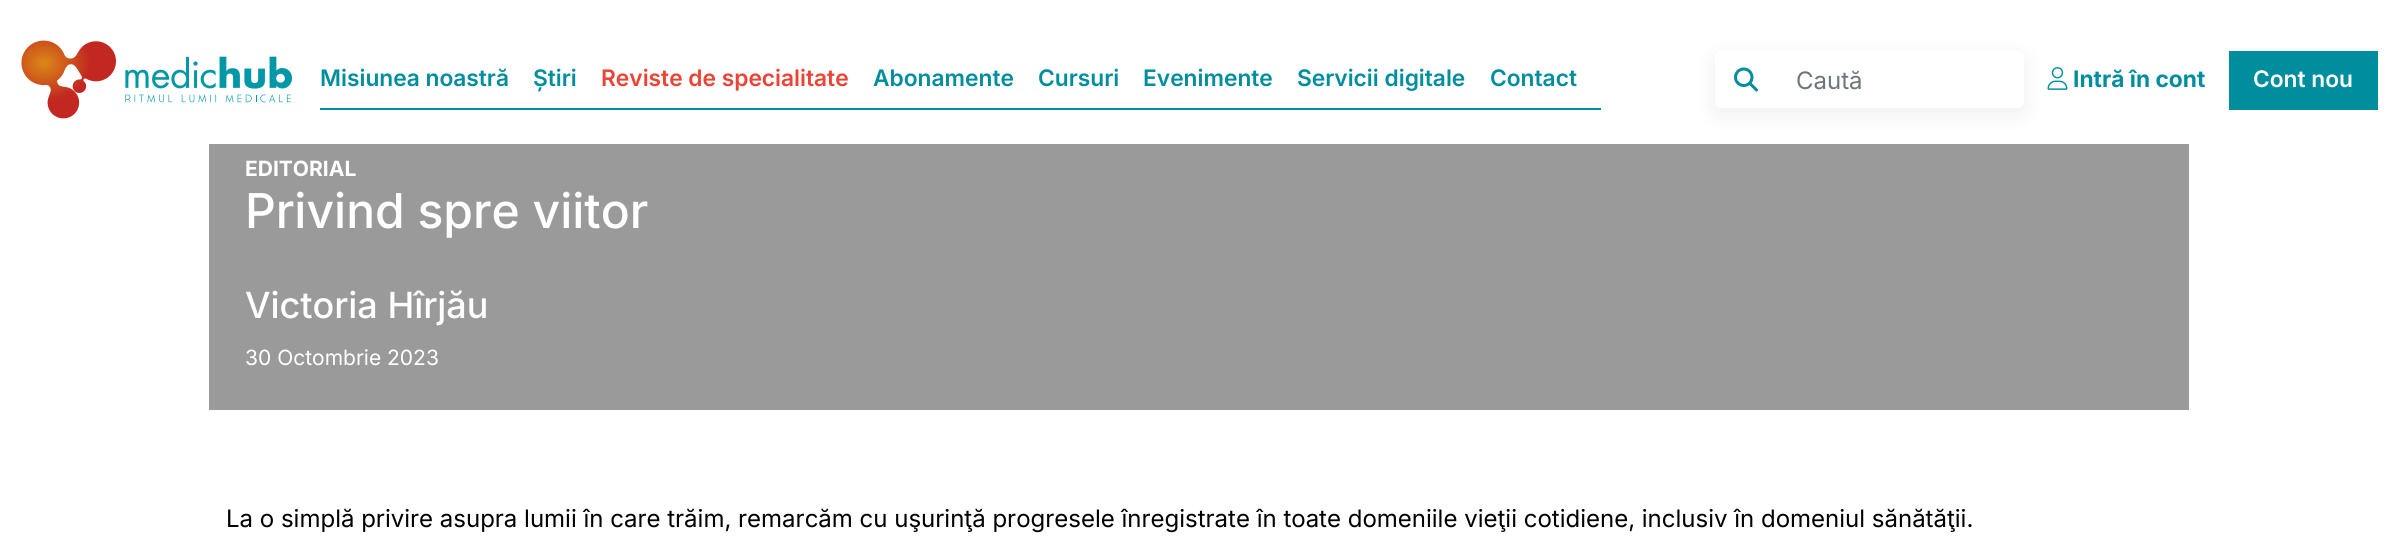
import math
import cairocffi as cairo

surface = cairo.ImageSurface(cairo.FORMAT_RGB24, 2395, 548)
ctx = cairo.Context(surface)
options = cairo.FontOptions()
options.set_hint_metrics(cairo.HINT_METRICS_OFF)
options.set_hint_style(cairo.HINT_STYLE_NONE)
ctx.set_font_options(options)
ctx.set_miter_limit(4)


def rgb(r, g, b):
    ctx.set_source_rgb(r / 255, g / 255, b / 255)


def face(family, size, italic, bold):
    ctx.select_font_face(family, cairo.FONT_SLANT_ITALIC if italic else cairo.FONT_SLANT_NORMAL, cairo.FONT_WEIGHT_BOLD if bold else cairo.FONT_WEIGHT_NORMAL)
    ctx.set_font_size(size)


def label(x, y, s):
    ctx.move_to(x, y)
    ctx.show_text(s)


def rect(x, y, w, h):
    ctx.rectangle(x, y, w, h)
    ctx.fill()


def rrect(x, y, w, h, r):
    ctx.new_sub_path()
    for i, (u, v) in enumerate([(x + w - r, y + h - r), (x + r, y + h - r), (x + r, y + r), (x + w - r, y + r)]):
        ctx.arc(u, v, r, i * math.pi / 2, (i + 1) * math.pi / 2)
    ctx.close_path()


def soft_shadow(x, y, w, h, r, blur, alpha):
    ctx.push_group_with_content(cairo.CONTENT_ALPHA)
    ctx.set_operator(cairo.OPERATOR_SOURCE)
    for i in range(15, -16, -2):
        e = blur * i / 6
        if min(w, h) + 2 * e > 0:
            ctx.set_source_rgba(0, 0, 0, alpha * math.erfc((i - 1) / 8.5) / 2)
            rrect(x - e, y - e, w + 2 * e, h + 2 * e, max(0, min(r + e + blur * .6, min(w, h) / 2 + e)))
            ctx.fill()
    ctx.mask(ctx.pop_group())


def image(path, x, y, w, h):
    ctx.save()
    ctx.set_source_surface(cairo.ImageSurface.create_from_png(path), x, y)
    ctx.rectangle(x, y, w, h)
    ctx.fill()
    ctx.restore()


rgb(255, 255, 255)
ctx.paint()
image('image0.png', 21, 40, 271, 79)
rgb(0, 142, 159)
rect(320, 108, 1281, 2)
face('Inter SemiBold', 22.75, 0, 0)
label(320, 86, 'Misiunea noastră')
label(533, 86, 'Știri')
rgb(237, 67, 53)
label(601, 86, 'Reviste de specialitate')
rgb(0, 142, 159)
label(873, 86, 'Abonamente')
label(1038, 86, 'Cursuri')
label(1143, 86, 'Evenimente')
label(1297, 86, 'Servicii digitale')
label(1490, 86, 'Contact')
rgb(154, 154, 154)
rect(209, 144, 1980, 266)
rgb(51, 51, 51)
soft_shadow(1715, 57, 309, 57, 6, 12, 0.08)
rgb(255, 255, 255)
rrect(1715, 51, 309, 57, 6)
ctx.fill()
image('image1.png', 1734, 67, 24, 25)
face('Inter', 24, 0, 0)
rgb(108, 117, 125)
label(1796, 89, 'Caută')
image('image2.png', 2047, 67, 21, 23)
face('Inter', 22.75, 0, 1)
rgb(0, 142, 159)
label(2073, 87, 'Intră în cont')
rect(2229, 51, 149, 59)
face('Inter SemiBold', 22.75, 0, 0)
rgb(255, 255, 255)
label(2253, 87, 'Cont nou')
face('Inter', 21, 0, 1)
label(245, 176, 'EDITORIAL')
face('Inter Medium', 48, 0, 0)
label(245, 228, 'Privind spre viitor')
face('Inter Medium', 36, 0, 0)
label(245, 318, 'Victoria Hîrjău')
face('Inter', 21, 0, 0)
label(245, 365, '30 Octombrie 2023')
face('Inter', 24, 0, 0)
rgb(0, 0, 0)
label(226, 527, 'La o simplă privire asupra lumii în care trăim, remarcăm cu uşurinţă progresele înregistrate în toate domeniile vieţii cotidiene, inclusiv în domeniul sănătăţii.')
surface.write_to_png('render.png')
